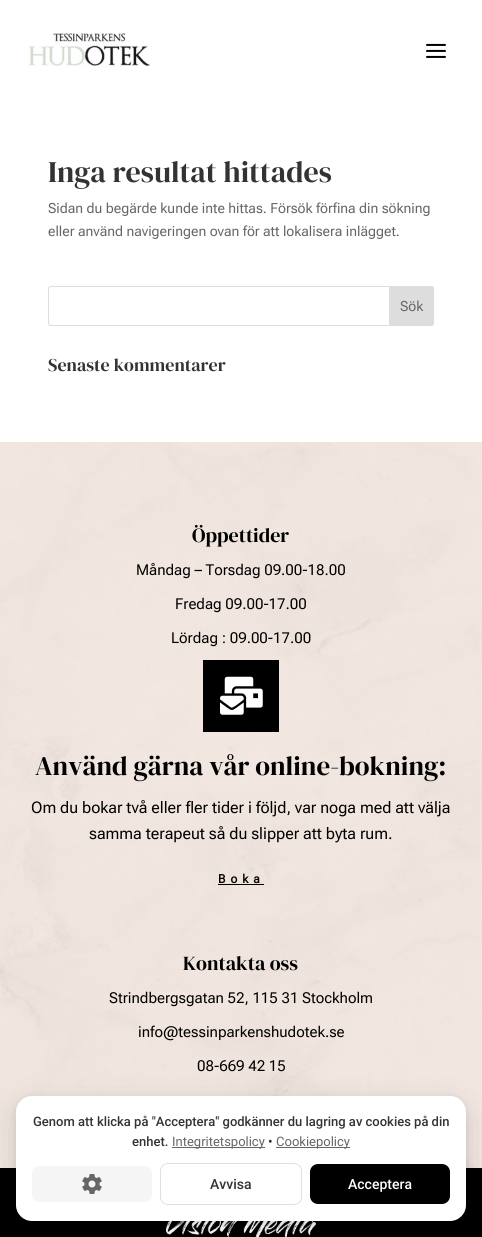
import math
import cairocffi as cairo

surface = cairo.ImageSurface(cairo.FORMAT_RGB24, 482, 1237)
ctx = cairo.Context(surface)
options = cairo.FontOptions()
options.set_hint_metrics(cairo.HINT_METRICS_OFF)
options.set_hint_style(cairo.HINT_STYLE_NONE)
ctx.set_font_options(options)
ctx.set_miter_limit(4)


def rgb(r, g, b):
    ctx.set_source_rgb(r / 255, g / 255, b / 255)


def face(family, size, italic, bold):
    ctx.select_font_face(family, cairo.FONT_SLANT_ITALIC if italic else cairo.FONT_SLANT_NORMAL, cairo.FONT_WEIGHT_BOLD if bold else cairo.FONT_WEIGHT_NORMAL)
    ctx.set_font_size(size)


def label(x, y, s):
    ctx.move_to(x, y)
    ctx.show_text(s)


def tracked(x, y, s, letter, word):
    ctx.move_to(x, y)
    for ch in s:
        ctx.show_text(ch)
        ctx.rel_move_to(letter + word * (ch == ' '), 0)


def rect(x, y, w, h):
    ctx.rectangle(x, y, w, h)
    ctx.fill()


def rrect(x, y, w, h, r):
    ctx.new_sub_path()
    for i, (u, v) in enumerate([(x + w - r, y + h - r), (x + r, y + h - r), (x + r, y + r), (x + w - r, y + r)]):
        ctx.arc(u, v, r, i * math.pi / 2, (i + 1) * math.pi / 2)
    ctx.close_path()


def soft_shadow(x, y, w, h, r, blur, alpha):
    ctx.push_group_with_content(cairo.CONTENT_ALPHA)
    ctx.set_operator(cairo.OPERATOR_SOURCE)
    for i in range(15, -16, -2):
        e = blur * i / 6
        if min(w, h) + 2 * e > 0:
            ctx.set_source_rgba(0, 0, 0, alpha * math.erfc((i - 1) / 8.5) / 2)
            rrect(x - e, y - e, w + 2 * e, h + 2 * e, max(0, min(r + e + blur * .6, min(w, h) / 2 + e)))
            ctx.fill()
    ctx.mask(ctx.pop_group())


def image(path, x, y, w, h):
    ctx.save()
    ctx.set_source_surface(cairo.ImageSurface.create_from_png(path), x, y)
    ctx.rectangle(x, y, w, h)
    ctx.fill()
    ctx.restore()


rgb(255, 255, 255)
ctx.paint()
image('image0.png', 28, 33, 122, 34)
image('image1.png', 426, 43, 20, 15)
face('DM Serif Display', 30, 0, 0)
rgb(51, 51, 51)
label(48, 182, 'Inga resultat hittades')
face('Roboto Flex', 14, 0, 0)
rgb(102, 102, 102)
label(48, 213, 'Sidan du begärde kunde inte hittas. Försök förfina din sökning')
label(48, 236, 'eller använd navigeringen ovan för att lokalisera inlägget.')
rrect(48.5, 286.5, 385, 39, 2.5)
rgb(221, 221, 221)
ctx.set_line_width(1)
ctx.stroke()
ctx.new_path()
ctx.move_to(389.5, 286.5)
ctx.line_to(431, 286.5)
ctx.curve_to(432.5, 286.5, 433.5, 287.5, 433.5, 289)
ctx.line_to(433.5, 323)
ctx.curve_to(433.5, 324.5, 432.5, 325.5, 431, 325.5)
ctx.line_to(389.5, 325.5)
ctx.close_path()
ctx.fill_preserve()
ctx.stroke()
rgb(102, 102, 102)
label(400, 311, 'Sök')
face('DM Serif Display', 18, 0, 0)
rgb(51, 51, 51)
label(48, 371, 'Senaste kommentarer')
image('image2.png', 0, 442, 482, 726)
face('DM Serif Display', 20, 0, 0)
rgb(0, 0, 0)
label(192, 542, 'Öppettider')
face('Roboto Flex', 15, 0, 0)
label(136, 575, 'Måndag – Torsdag 09.00-18.00')
label(175, 609, 'Fredag 09.00-17.00')
label(171, 643, 'Lördag : 09.00-17.00')
rect(203, 660, 76, 72)
image('image3.png', 220, 676, 43, 39)
face('DM Serif Display', 27, 0, 0)
label(35, 775, 'Använd gärna vår online-bokning:')
face('Roboto Flex', 16, 0, 0)
label(31, 813, 'Om du bokar två eller fler tider i följd, var noga med att välja')
label(89, 839, 'samma terapeut så du slipper att byta rum.')
face('Roboto Flex', 12, 0, 1)
tracked(218, 883, 'Boka', 5, 0)
rect(218, 884, 46, 1)
face('DM Serif Display', 20, 0, 0)
label(183, 970, 'Kontakta oss')
face('Roboto Flex', 15, 0, 0)
label(109, 1003, 'Strindbergsgatan 52, 115 31 Stockholm')
label(138, 1037, 'info@tessinparkenshudotek.se')
label(197, 1071, '08-669 42 15')
rect(0, 1168, 482, 69)
image('image4.png', 166, 1221, 150, 16)
rgb(0, 0, 0)
soft_shadow(16, 1098, 450, 125, 16, 4, 0.08)
soft_shadow(16, 1104, 450, 125, 16, 16, 0.12)
rgb(255, 255, 255)
rrect(16, 1096, 450, 125, 16)
ctx.fill()
face('Roboto Medium', 13, 0, 0)
rgb(51, 51, 51)
label(33, 1126, 'Genom att klicka på "Acceptera" godkänner du lagring av cookies på din')
label(132, 1146, 'enhet.')
rgb(102, 102, 102)
rect(172, 1147, 93, 1)
face('Roboto', 13, 0, 0)
label(172, 1146, 'Integritetspolicy')
face('Roboto Medium', 13, 0, 0)
rgb(51, 51, 51)
label(268, 1146, '•')
rgb(102, 102, 102)
rect(276, 1147, 74, 1)
face('Roboto', 13, 0, 0)
label(276, 1146, 'Cookiepolicy')
rgb(245, 245, 245)
rrect(32, 1166, 120, 36, 8)
ctx.fill()
image('image5.png', 82, 1174, 20, 20)
rrect(160.5, 1163.5, 141, 41, 7.5)
rgb(224, 224, 224)
ctx.stroke()
face('Roboto Medium', 14, 0, 0)
rgb(51, 51, 51)
label(210, 1189, 'Avvisa')
rgb(0, 0, 0)
rrect(310, 1164, 140, 40, 8)
ctx.fill()
rgb(255, 255, 255)
label(348, 1189, 'Acceptera')
surface.write_to_png('render.png')
